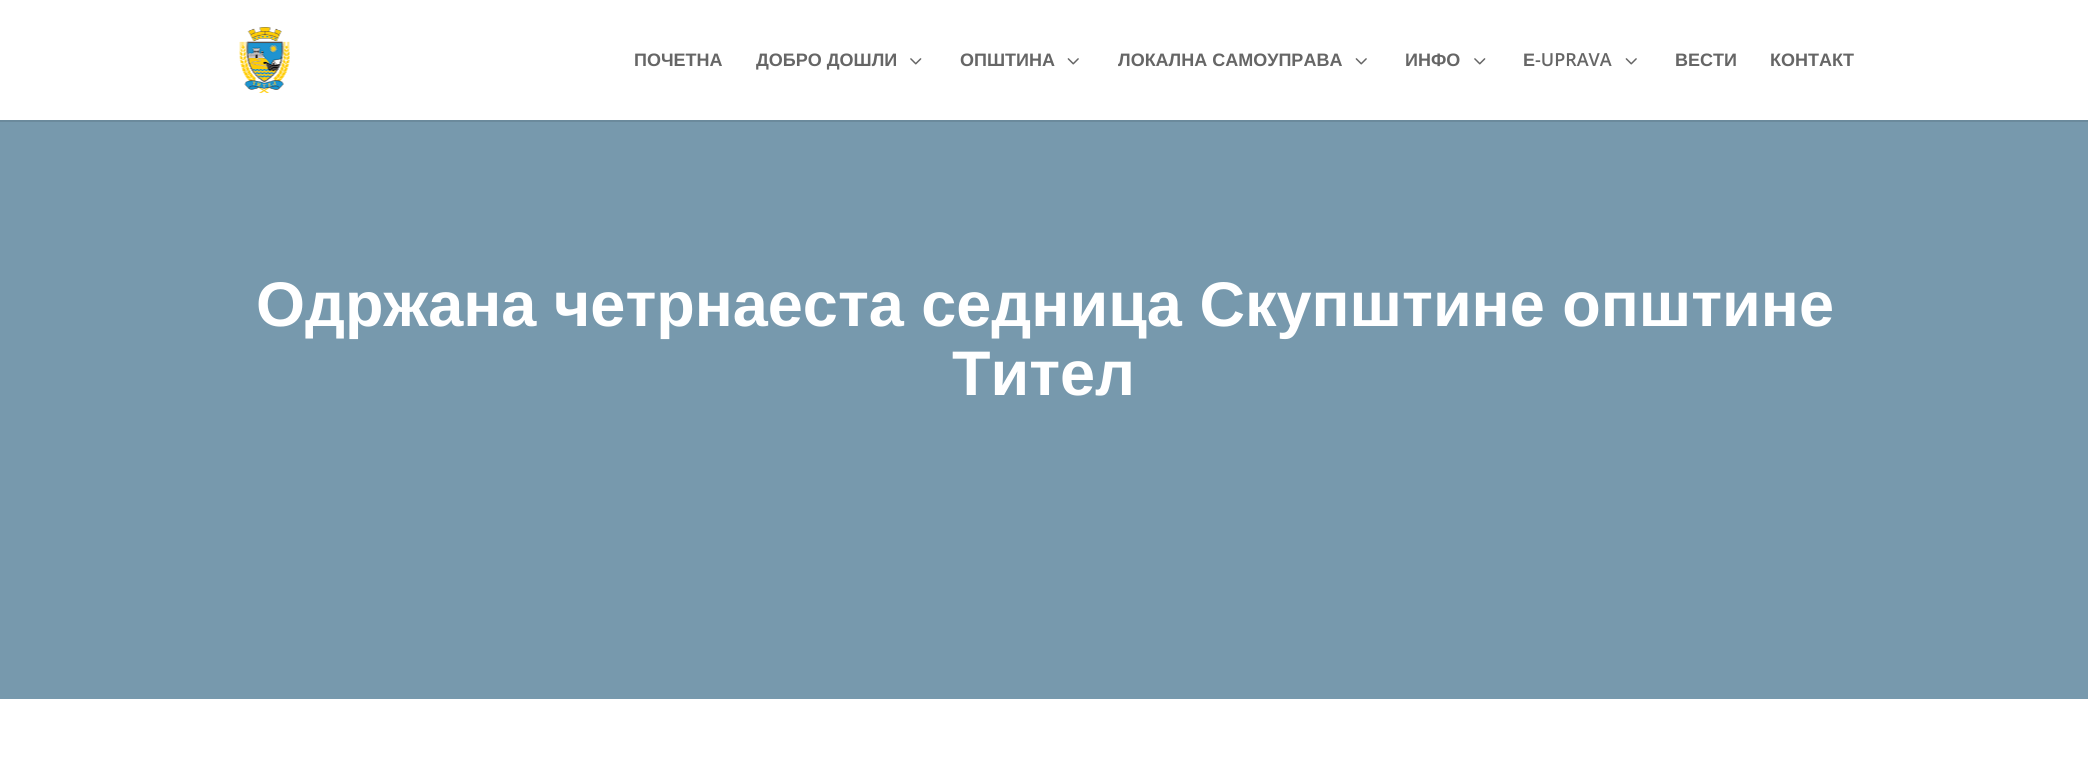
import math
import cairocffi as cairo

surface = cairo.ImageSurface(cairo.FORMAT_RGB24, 2088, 764)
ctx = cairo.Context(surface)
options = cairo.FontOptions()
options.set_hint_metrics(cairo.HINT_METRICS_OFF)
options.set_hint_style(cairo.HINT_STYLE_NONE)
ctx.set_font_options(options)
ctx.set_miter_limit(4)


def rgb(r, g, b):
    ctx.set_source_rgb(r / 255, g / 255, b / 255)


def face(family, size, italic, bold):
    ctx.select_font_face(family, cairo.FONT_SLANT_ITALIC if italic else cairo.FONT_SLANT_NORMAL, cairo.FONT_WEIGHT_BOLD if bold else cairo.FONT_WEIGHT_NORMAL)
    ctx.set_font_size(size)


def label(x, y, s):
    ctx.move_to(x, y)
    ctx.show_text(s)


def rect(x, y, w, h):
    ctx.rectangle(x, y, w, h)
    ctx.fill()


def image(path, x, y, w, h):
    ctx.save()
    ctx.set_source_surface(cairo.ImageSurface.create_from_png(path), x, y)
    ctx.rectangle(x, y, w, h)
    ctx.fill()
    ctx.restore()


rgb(255, 255, 255)
ctx.paint()
rgb(107, 138, 156)
rect(0, 120, 2088, 2)
image('image0.png', 239, 27, 51, 66)
face('Liberation Sans', 18, 0, 1)
rgb(102, 102, 102)
label(634, 66, 'ПОЧЕТНА')
label(756, 66, 'ДОБРО ДОШЛИ')
image('image1.png', 910, 58, 12, 7)
label(960, 66, 'ОПШТИНА')
image('image2.png', 1067, 58, 12, 7)
label(1118, 66, 'ЛОКАЛНА САМОУПРАВА')
image('image2.png', 1355, 58, 12, 7)
label(1405, 66, 'ИНФО')
image('image1.png', 1474, 58, 12, 7)
label(1523, 66, 'Е')
face('Open Sans SemiBold', 18, 0, 0)
label(1535, 66, '-UPRAVA')
image('image2.png', 1625, 58, 12, 7)
face('Liberation Sans', 18, 0, 1)
label(1675, 66, 'ВЕСТИ')
label(1770, 66, 'КОНТАКТ')
rgb(119, 153, 173)
rect(0, 122, 2088, 577)
face('Liberation Sans', 63, 0, 1)
rgb(255, 255, 255)
label(256, 326, 'Одржана четрнаеста седница Скупштине општине')
label(952, 395, 'Тител')
surface.write_to_png('render.png')
